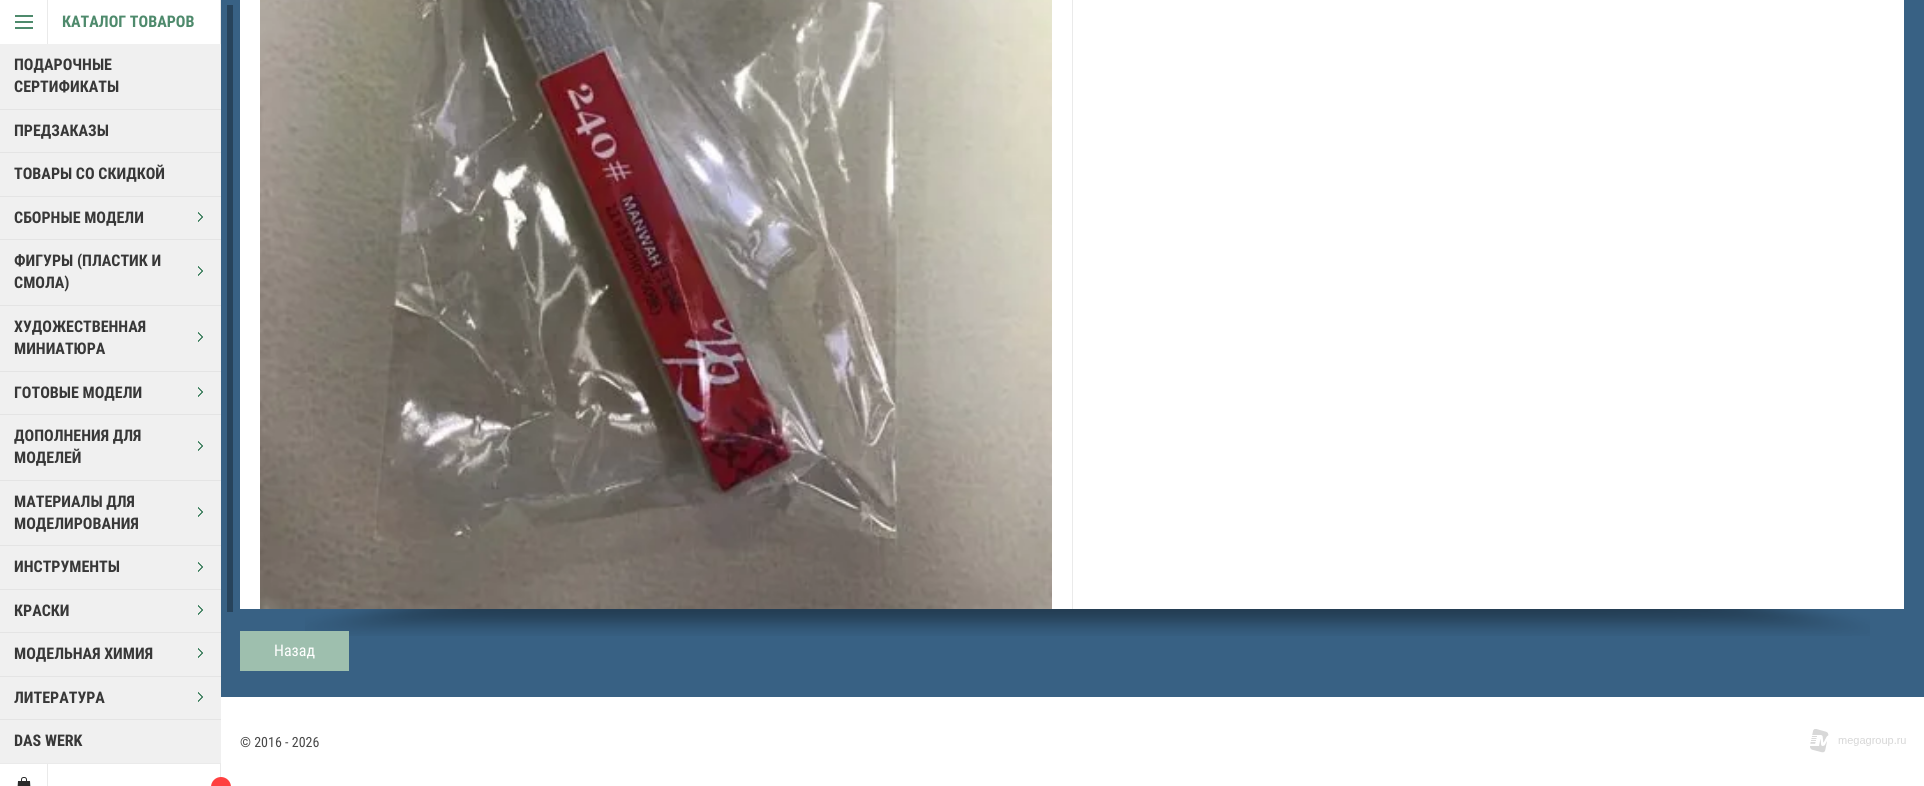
import math
import cairocffi as cairo

surface = cairo.ImageSurface(cairo.FORMAT_RGB24, 1924, 786)
ctx = cairo.Context(surface)
options = cairo.FontOptions()
options.set_hint_metrics(cairo.HINT_METRICS_OFF)
options.set_hint_style(cairo.HINT_STYLE_NONE)
ctx.set_font_options(options)
ctx.set_miter_limit(4)


def rgb(r, g, b):
    ctx.set_source_rgb(r / 255, g / 255, b / 255)


def face(family, size, italic, bold):
    ctx.select_font_face(family, cairo.FONT_SLANT_ITALIC if italic else cairo.FONT_SLANT_NORMAL, cairo.FONT_WEIGHT_BOLD if bold else cairo.FONT_WEIGHT_NORMAL)
    ctx.set_font_size(size)


def label(x, y, s):
    ctx.move_to(x, y)
    ctx.show_text(s)


def rect(x, y, w, h):
    ctx.rectangle(x, y, w, h)
    ctx.fill()


def rrect(x, y, w, h, r):
    ctx.new_sub_path()
    for i, (u, v) in enumerate([(x + w - r, y + h - r), (x + r, y + h - r), (x + r, y + r), (x + w - r, y + r)]):
        ctx.arc(u, v, r, i * math.pi / 2, (i + 1) * math.pi / 2)
    ctx.close_path()


def image(path, x, y, w, h):
    ctx.save()
    ctx.set_source_surface(cairo.ImageSurface.create_from_png(path), x, y)
    ctx.rectangle(x, y, w, h)
    ctx.fill()
    ctx.restore()


rgb(56, 97, 132)
ctx.paint()
rgb(255, 255, 255)
rect(0, 0, 220, 786)
rgb(234, 234, 234)
rect(220, 0, 1, 786)
rect(0, 763, 221, 1)
image('image0.png', 15, 15, 18, 14)
rect(47, 0, 1, 44)
face('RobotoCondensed', 16, 0, 1)
rgb(78, 138, 108)
label(62, 27, 'КАТАЛОГ ТОВАРОВ')
rgb(240, 240, 240)
rect(0, 44, 221, 719)
rgb(56, 56, 56)
label(14, 70, 'ПОДАРОЧНЫЕ')
label(14, 92, 'СЕРТИФИКАТЫ')
rgb(228, 228, 228)
rect(0, 109, 221, 1)
rgb(56, 56, 56)
label(14, 136, 'ПРЕДЗАКАЗЫ')
rgb(228, 228, 228)
rect(0, 152, 221, 1)
rgb(56, 56, 56)
label(14, 179, 'ТОВАРЫ СО СКИДКОЙ')
rgb(228, 228, 228)
rect(0, 196, 221, 1)
rgb(56, 56, 56)
label(14, 223, 'СБОРНЫЕ МОДЕЛИ')
image('image1.png', 198, 212, 5, 10)
rgb(228, 228, 228)
rect(0, 239, 221, 1)
rgb(56, 56, 56)
label(14, 266, 'ФИГУРЫ (ПЛАСТИК И')
label(14, 288, 'СМОЛА)')
image('image1.png', 198, 266, 5, 10)
rgb(228, 228, 228)
rect(0, 305, 221, 1)
rgb(56, 56, 56)
label(14, 332, 'ХУДОЖЕСТВЕННАЯ')
label(14, 354, 'МИНИАТЮРА')
image('image1.png', 198, 332, 5, 10)
rgb(228, 228, 228)
rect(0, 371, 221, 1)
rgb(56, 56, 56)
label(14, 398, 'ГОТОВЫЕ МОДЕЛИ')
image('image1.png', 198, 387, 5, 10)
rgb(228, 228, 228)
rect(0, 414, 221, 1)
rgb(56, 56, 56)
label(14, 441, 'ДОПОЛНЕНИЯ ДЛЯ')
label(14, 463, 'МОДЕЛЕЙ')
image('image1.png', 198, 441, 5, 10)
rgb(228, 228, 228)
rect(0, 480, 221, 1)
rgb(56, 56, 56)
label(14, 507, 'МАТЕРИАЛЫ ДЛЯ')
label(14, 529, 'МОДЕЛИРОВАНИЯ')
image('image1.png', 198, 507, 5, 10)
rgb(228, 228, 228)
rect(0, 545, 221, 1)
rgb(56, 56, 56)
label(14, 572, 'ИНСТРУМЕНТЫ')
image('image1.png', 198, 562, 5, 10)
rgb(228, 228, 228)
rect(0, 589, 221, 1)
rgb(56, 56, 56)
label(14, 616, 'КРАСКИ')
image('image1.png', 198, 605, 5, 10)
rgb(228, 228, 228)
rect(0, 632, 221, 1)
rgb(56, 56, 56)
label(14, 659, 'МОДЕЛЬНАЯ ХИМИЯ')
image('image1.png', 198, 648, 5, 10)
rgb(228, 228, 228)
rect(0, 676, 221, 1)
rgb(56, 56, 56)
label(14, 703, 'ЛИТЕРАТУРА')
image('image1.png', 198, 692, 5, 10)
rgb(228, 228, 228)
rect(0, 719, 221, 1)
rgb(56, 56, 56)
label(14, 746, 'DAS WERK')
image('image2.png', 17, 777, 14, 9)
rgb(234, 234, 234)
rect(47, 764, 1, 22)
rgb(255, 255, 255)
rect(221, 697, 1703, 89)
rgb(255, 64, 64)
rrect(211, 777, 20, 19, 10)
ctx.fill()
rgb(39, 67, 91)
rect(227, 5, 6, 607)
rgb(255, 255, 255)
rect(240, 0, 1664, 609)
rgb(234, 234, 234)
rect(1072, 0, 1, 609)
image('image3.png', 260, 0, 792, 609)
image('image4.png', 305, 609, 1565, 27)
rgb(158, 191, 174)
rect(240, 631, 109, 40)
face('RobotoCondensed', 16, 0, 0)
rgb(255, 255, 255)
label(274, 656, 'Назад')
face('RobotoCondensed', 14, 0, 0)
rgb(72, 72, 72)
label(240, 747, '© 2016 - 2026')
image('image5.png', 1810, 729, 96, 24)
surface.write_to_png('render.png')
